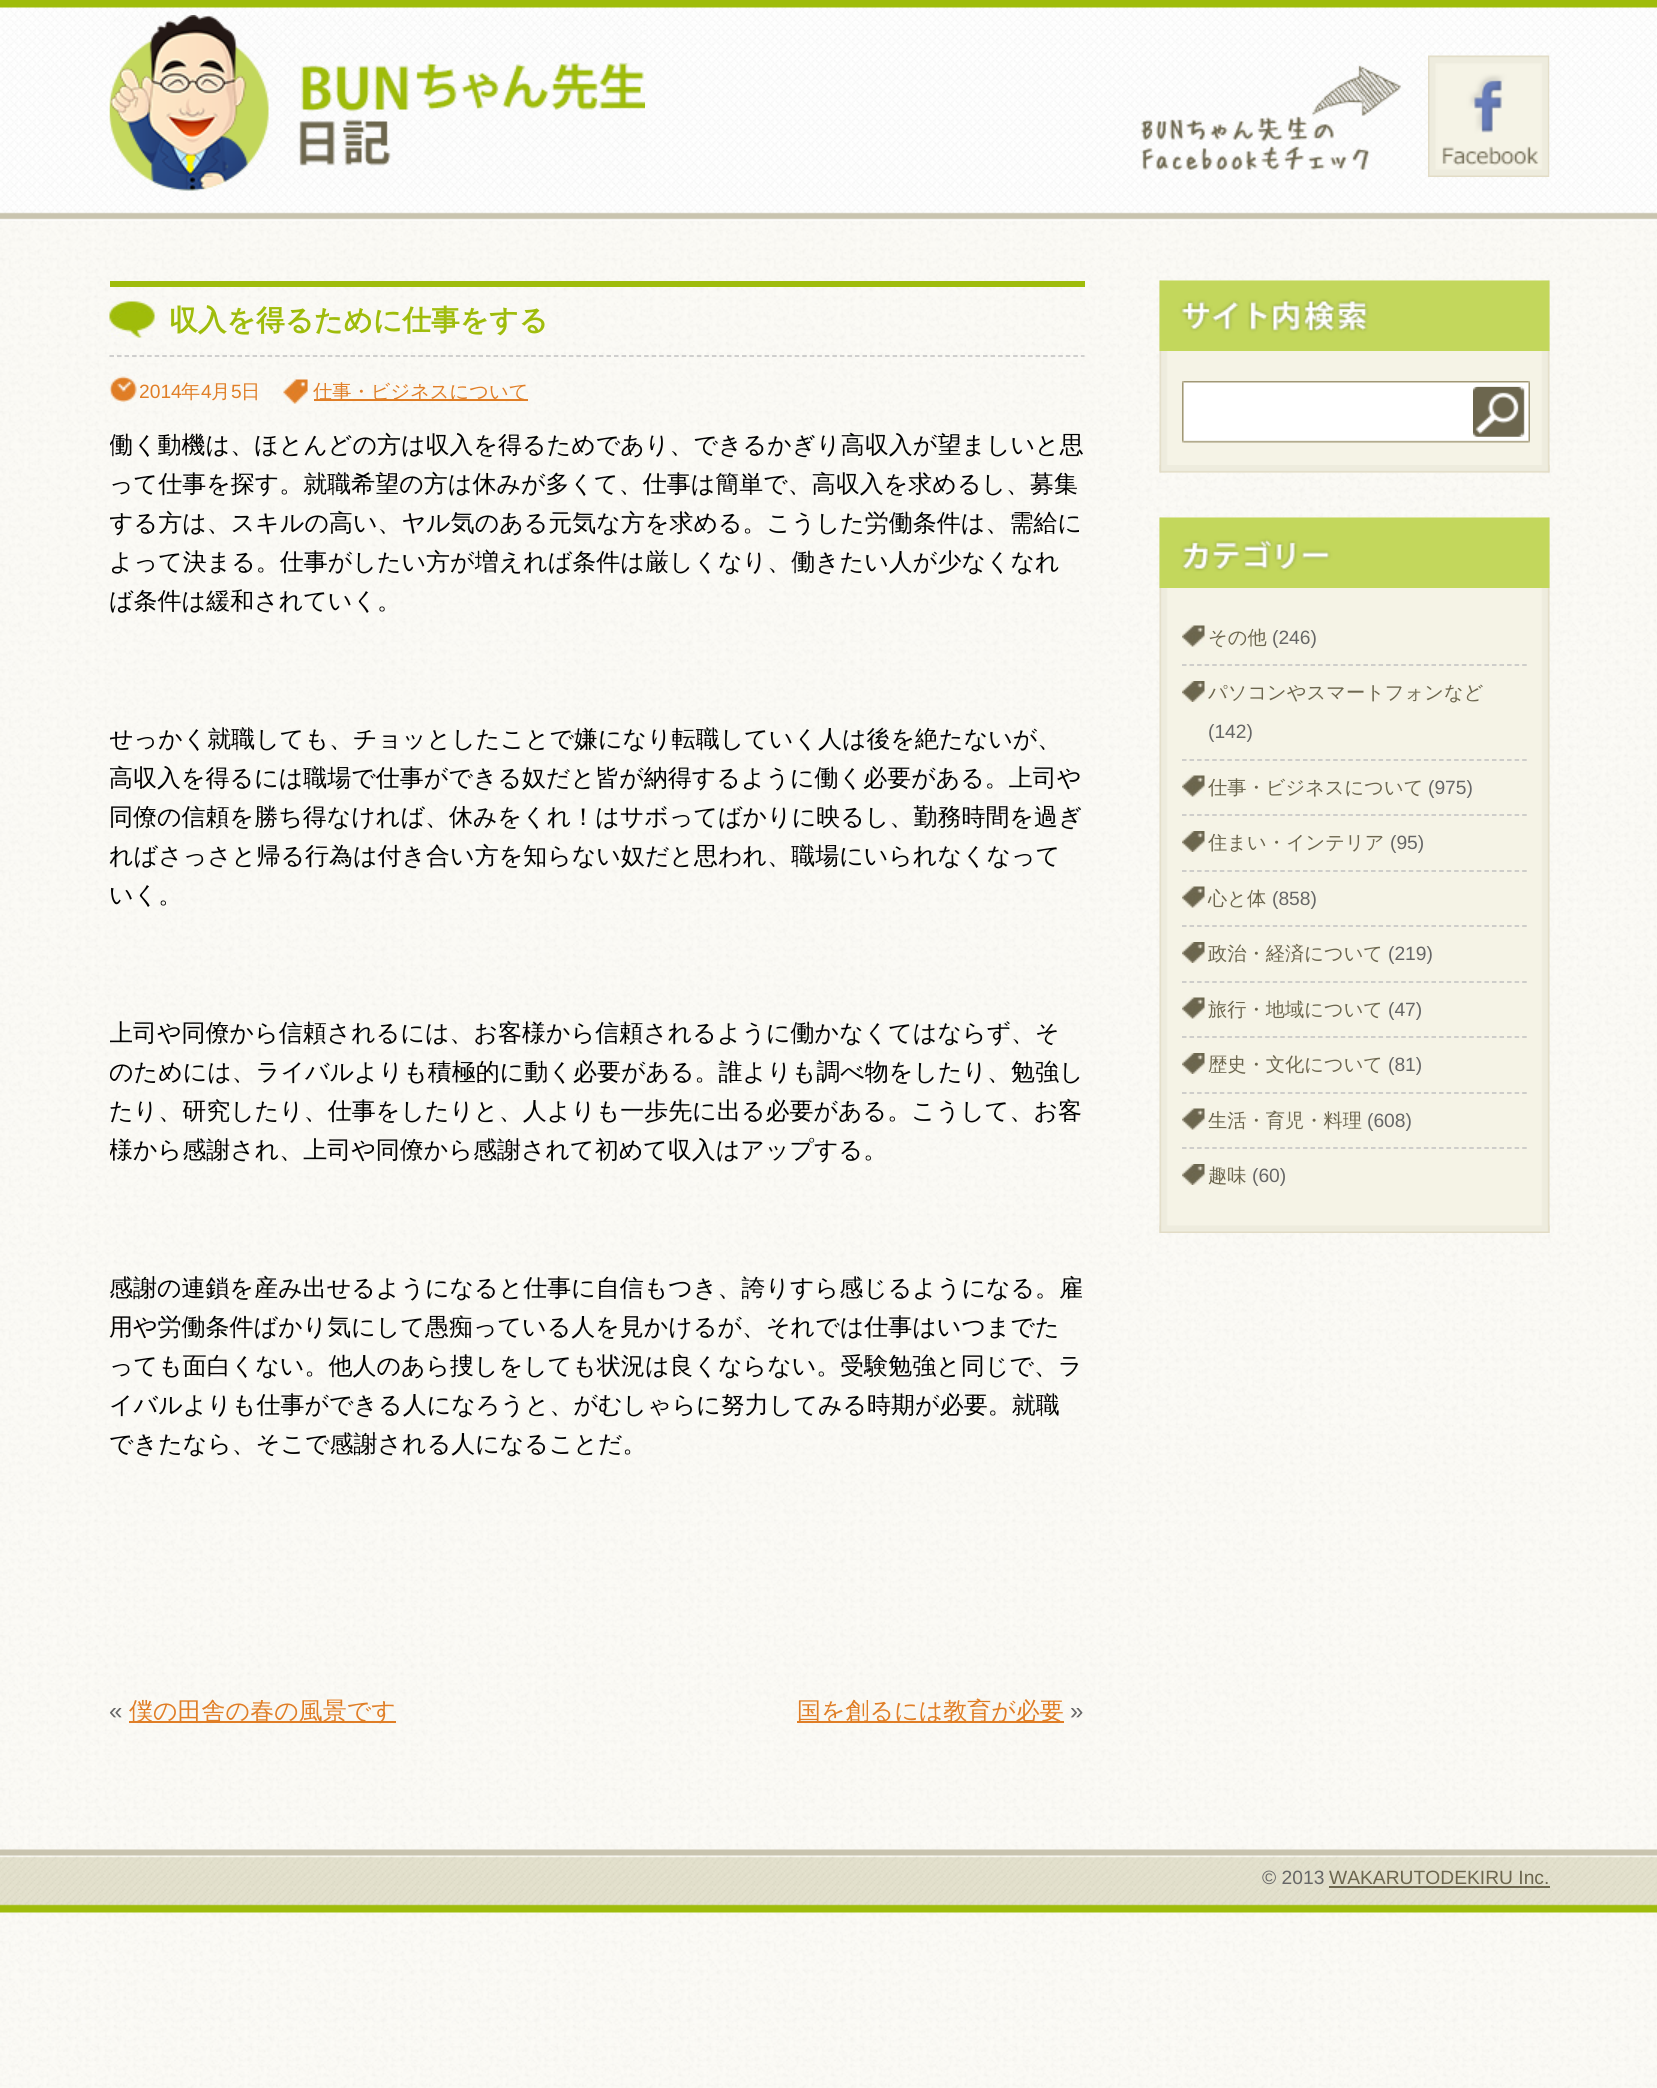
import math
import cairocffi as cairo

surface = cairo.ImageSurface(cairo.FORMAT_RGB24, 1657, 2088)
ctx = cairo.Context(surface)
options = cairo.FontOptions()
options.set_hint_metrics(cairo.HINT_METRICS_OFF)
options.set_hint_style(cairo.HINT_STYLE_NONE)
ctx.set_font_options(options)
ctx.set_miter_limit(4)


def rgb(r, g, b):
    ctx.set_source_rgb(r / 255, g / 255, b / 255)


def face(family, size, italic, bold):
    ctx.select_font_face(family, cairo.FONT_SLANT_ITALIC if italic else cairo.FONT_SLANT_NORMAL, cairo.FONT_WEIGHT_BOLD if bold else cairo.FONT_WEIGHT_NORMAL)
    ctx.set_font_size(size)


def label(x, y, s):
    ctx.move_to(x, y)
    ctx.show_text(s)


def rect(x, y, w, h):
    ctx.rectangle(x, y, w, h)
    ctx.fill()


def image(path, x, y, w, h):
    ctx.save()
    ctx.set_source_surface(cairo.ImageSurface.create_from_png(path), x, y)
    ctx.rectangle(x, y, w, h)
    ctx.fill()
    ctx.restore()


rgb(255, 255, 255)
ctx.paint()
image('image0.png', 0, 220, 1657, 1868)
image('image1.png', 0, 1849, 1657, 64)
image('image2.png', 0, 0, 1657, 221)
image('image3.png', 109, 15, 536, 176)
image('image4.png', 1141, 65, 260, 105)
image('image5.png', 1428, 55, 122, 122)
rgb(159, 188, 11)
rect(110, 281, 975, 6)
image('image6.png', 109, 301, 46, 37)
ctx.new_path()
ctx.move_to(109.5, 356)
ctx.line_to(1084.5, 356)
rgb(192, 192, 192)
ctx.set_line_width(1.5)
ctx.set_dash([4.5, 3.03])
ctx.stroke()
face('WenQuanYi Zen Hei', 28.75, 0, 1)
rgb(159, 188, 11)
label(169, 330, '収入を得るために仕事をする')
image('image7.png', 109, 376, 28, 26)
face('Liberation Sans', 19.25, 0, 0)
rgb(224, 126, 38)
label(139, 398, '2014')
face('WenQuanYi Zen Hei Medium', 19.25, 0, 0)
label(181, 398, '年')
face('Liberation Sans', 19.25, 0, 0)
label(201, 398, '4')
face('WenQuanYi Zen Hei Medium', 19.25, 0, 0)
label(211, 398, '月')
face('Liberation Sans', 19.25, 0, 0)
label(231, 398, '5')
face('WenQuanYi Zen Hei Medium', 19.25, 0, 0)
label(241, 398, '日')
image('image8.png', 283, 378, 26, 26)
rect(314, 399, 214, 2)
label(313, 398, '仕事・ビジネスについて')
ctx.save()
ctx.rectangle(110, 426, 975, 1206)
ctx.clip()
face('WenQuanYi Zen Hei Medium', 24, 0, 0)
rgb(0, 0, 0)
label(109, 453, '働く動機は、ほとんどの方は収入を得るためであり、できるかぎり高収入が望ましいと思')
ctx.restore()
face('WenQuanYi Zen Hei Medium', 24, 0, 0)
rgb(0, 0, 0)
label(109, 492, 'って仕事を探す。就職希望の方は休みが多くて、仕事は簡単で、高収入を求めるし、募集')
ctx.save()
ctx.rectangle(110, 426, 975, 1206)
ctx.clip()
label(109, 531, 'する方は、スキルの高い、ヤル気のある元気な方を求める。こうした労働条件は、需給に')
ctx.restore()
label(109, 570, 'よって決まる。仕事がしたい方が増えれば条件は厳しくなり、働きたい人が少なくなれ')
label(109, 609, 'ば条件は緩和されていく。')
ctx.save()
ctx.rectangle(110, 426, 975, 1206)
ctx.clip()
label(109, 747, 'せっかく就職しても、チョッとしたことで嫌になり転職していく人は後を絶たないが、')
ctx.restore()
label(109, 786, '高収入を得るには職場で仕事ができる奴だと皆が納得するように働く必要がある。上司や')
label(109, 825, '同僚の信頼を勝ち得なければ、休みをくれ！はサボってばかりに映るし、勤務時間を過ぎ')
label(109, 864, 'ればさっさと帰る行為は付き合い方を知らない奴だと思われ、職場にいられなくなって')
label(109, 903, 'いく。')
ctx.save()
ctx.rectangle(110, 426, 975, 1206)
ctx.clip()
label(109, 1041, '上司や同僚から信頼されるには、お客様から信頼されるように働かなくてはならず、そ')
label(109, 1080, 'のためには、ライバルよりも積極的に動く必要がある。誰よりも調べ物をしたり、勉強し')
ctx.restore()
label(109, 1119, 'たり、研究したり、仕事をしたりと、人よりも一歩先に出る必要がある。こうして、お客')
ctx.save()
ctx.rectangle(110, 426, 975, 1206)
ctx.clip()
label(109, 1158, '様から感謝され、上司や同僚から感謝されて初めて収入はアップする。')
ctx.restore()
label(109, 1296, '感謝の連鎖を産み出せるようになると仕事に自信もつき、誇りすら感じるようになる。雇')
label(109, 1335, '用や労働条件ばかり気にして愚痴っている人を見かけるが、それでは仕事はいつまでた')
label(109, 1374, 'っても面白くない。他人のあら捜しをしても状況は良くならない。受験勉強と同じで、ラ')
label(109, 1413, 'イバルよりも仕事ができる人になろうと、がむしゃらに努力してみる時期が必要。就職')
label(109, 1452, 'できたなら、そこで感謝される人になることだ。')
face('Liberation Sans', 24, 0, 0)
rgb(102, 102, 102)
label(109, 1719, '«')
rgb(224, 126, 38)
rect(129, 1721, 267, 2)
face('WenQuanYi Zen Hei Medium', 24, 0, 0)
label(129, 1719, '僕の田舎の春の風景です')
rect(797, 1721, 267, 2)
label(797, 1719, '国を創るには教育が必要')
face('Liberation Sans', 24, 0, 0)
rgb(102, 102, 102)
label(1070, 1719, '»')
image('image9.png', 1159, 280, 391, 193)
image('image10.png', 1159, 280, 391, 71)
image('image11.png', 1159, 465, 391, 8)
image('image12.png', 1182, 381, 348, 62)
image('image13.png', 1473, 387, 50, 50)
image('image14.png', 1159, 517, 391, 716)
image('image15.png', 1159, 517, 391, 71)
image('image16.png', 1159, 1225, 391, 8)
image('image17.png', 1182, 625, 23, 22)
ctx.new_path()
ctx.move_to(1182, 665)
ctx.line_to(1527, 665)
rgb(192, 192, 192)
ctx.set_dash([4.5, 3.06])
ctx.stroke()
face('WenQuanYi Zen Hei Medium', 19.25, 0, 0)
rgb(108, 102, 78)
label(1208, 644, 'その他')
face('Liberation Sans', 19.25, 0, 0)
rgb(102, 102, 102)
label(1272, 644, '(246)')
image('image18.png', 1182, 681, 23, 21)
ctx.new_path()
ctx.move_to(1182, 760)
ctx.line_to(1527, 760)
rgb(192, 192, 192)
ctx.stroke()
face('WenQuanYi Zen Hei Medium', 19.25, 0, 0)
rgb(108, 102, 78)
label(1208, 699, 'パソコンやスマートフォンなど')
face('Liberation Sans', 19.25, 0, 0)
rgb(102, 102, 102)
label(1208, 738, '(142)')
image('image17.png', 1182, 775, 23, 22)
ctx.new_path()
ctx.move_to(1182, 815)
ctx.line_to(1527, 815)
rgb(192, 192, 192)
ctx.stroke()
face('WenQuanYi Zen Hei Medium', 19.25, 0, 0)
rgb(108, 102, 78)
label(1208, 794, '仕事・ビジネスについて')
face('Liberation Sans', 19.25, 0, 0)
rgb(102, 102, 102)
label(1428, 794, '(975)')
image('image18.png', 1182, 831, 23, 21)
ctx.new_path()
ctx.move_to(1182, 871)
ctx.line_to(1527, 871)
rgb(192, 192, 192)
ctx.stroke()
face('WenQuanYi Zen Hei Medium', 19.25, 0, 0)
rgb(108, 102, 78)
label(1208, 849, '住まい・インテリア')
face('Liberation Sans', 19.25, 0, 0)
rgb(102, 102, 102)
label(1390, 849, '(95)')
image('image17.png', 1182, 886, 23, 22)
ctx.new_path()
ctx.move_to(1182, 926)
ctx.line_to(1527, 926)
rgb(192, 192, 192)
ctx.stroke()
face('WenQuanYi Zen Hei Medium', 19.25, 0, 0)
rgb(108, 102, 78)
label(1208, 905, '心と体')
face('Liberation Sans', 19.25, 0, 0)
rgb(102, 102, 102)
label(1272, 905, '(858)')
image('image18.png', 1182, 942, 23, 21)
ctx.new_path()
ctx.move_to(1182, 982)
ctx.line_to(1527, 982)
rgb(192, 192, 192)
ctx.stroke()
face('WenQuanYi Zen Hei Medium', 19.25, 0, 0)
rgb(108, 102, 78)
label(1208, 960, '政治・経済について')
face('Liberation Sans', 19.25, 0, 0)
rgb(102, 102, 102)
label(1388, 960, '(219)')
image('image17.png', 1182, 997, 23, 22)
ctx.new_path()
ctx.move_to(1182, 1037)
ctx.line_to(1527, 1037)
rgb(192, 192, 192)
ctx.stroke()
face('WenQuanYi Zen Hei Medium', 19.25, 0, 0)
rgb(108, 102, 78)
label(1208, 1016, '旅行・地域について')
face('Liberation Sans', 19.25, 0, 0)
rgb(102, 102, 102)
label(1388, 1016, '(47)')
image('image18.png', 1182, 1053, 23, 21)
ctx.new_path()
ctx.move_to(1182, 1093)
ctx.line_to(1527, 1093)
rgb(192, 192, 192)
ctx.stroke()
face('WenQuanYi Zen Hei Medium', 19.25, 0, 0)
rgb(108, 102, 78)
label(1208, 1071, '歴史・文化について')
face('Liberation Sans', 19.25, 0, 0)
rgb(102, 102, 102)
label(1388, 1071, '(81)')
image('image17.png', 1182, 1108, 23, 22)
ctx.new_path()
ctx.move_to(1182, 1148)
ctx.line_to(1527, 1148)
rgb(192, 192, 192)
ctx.stroke()
face('WenQuanYi Zen Hei Medium', 19.25, 0, 0)
rgb(108, 102, 78)
label(1208, 1127, '生活・育児・料理')
face('Liberation Sans', 19.25, 0, 0)
rgb(102, 102, 102)
label(1367, 1127, '(608)')
image('image18.png', 1182, 1164, 23, 21)
face('WenQuanYi Zen Hei Medium', 19.25, 0, 0)
rgb(108, 102, 78)
label(1208, 1182, '趣味')
face('Liberation Sans', 19.25, 0, 0)
rgb(102, 102, 102)
label(1252, 1182, '(60)')
label(1262, 1884, '© 2013')
rgb(108, 102, 78)
label(1329, 1884, 'WAKARUTODEKIRU Inc.')
rect(1329, 1886, 221, 2)
surface.write_to_png('render.png')
